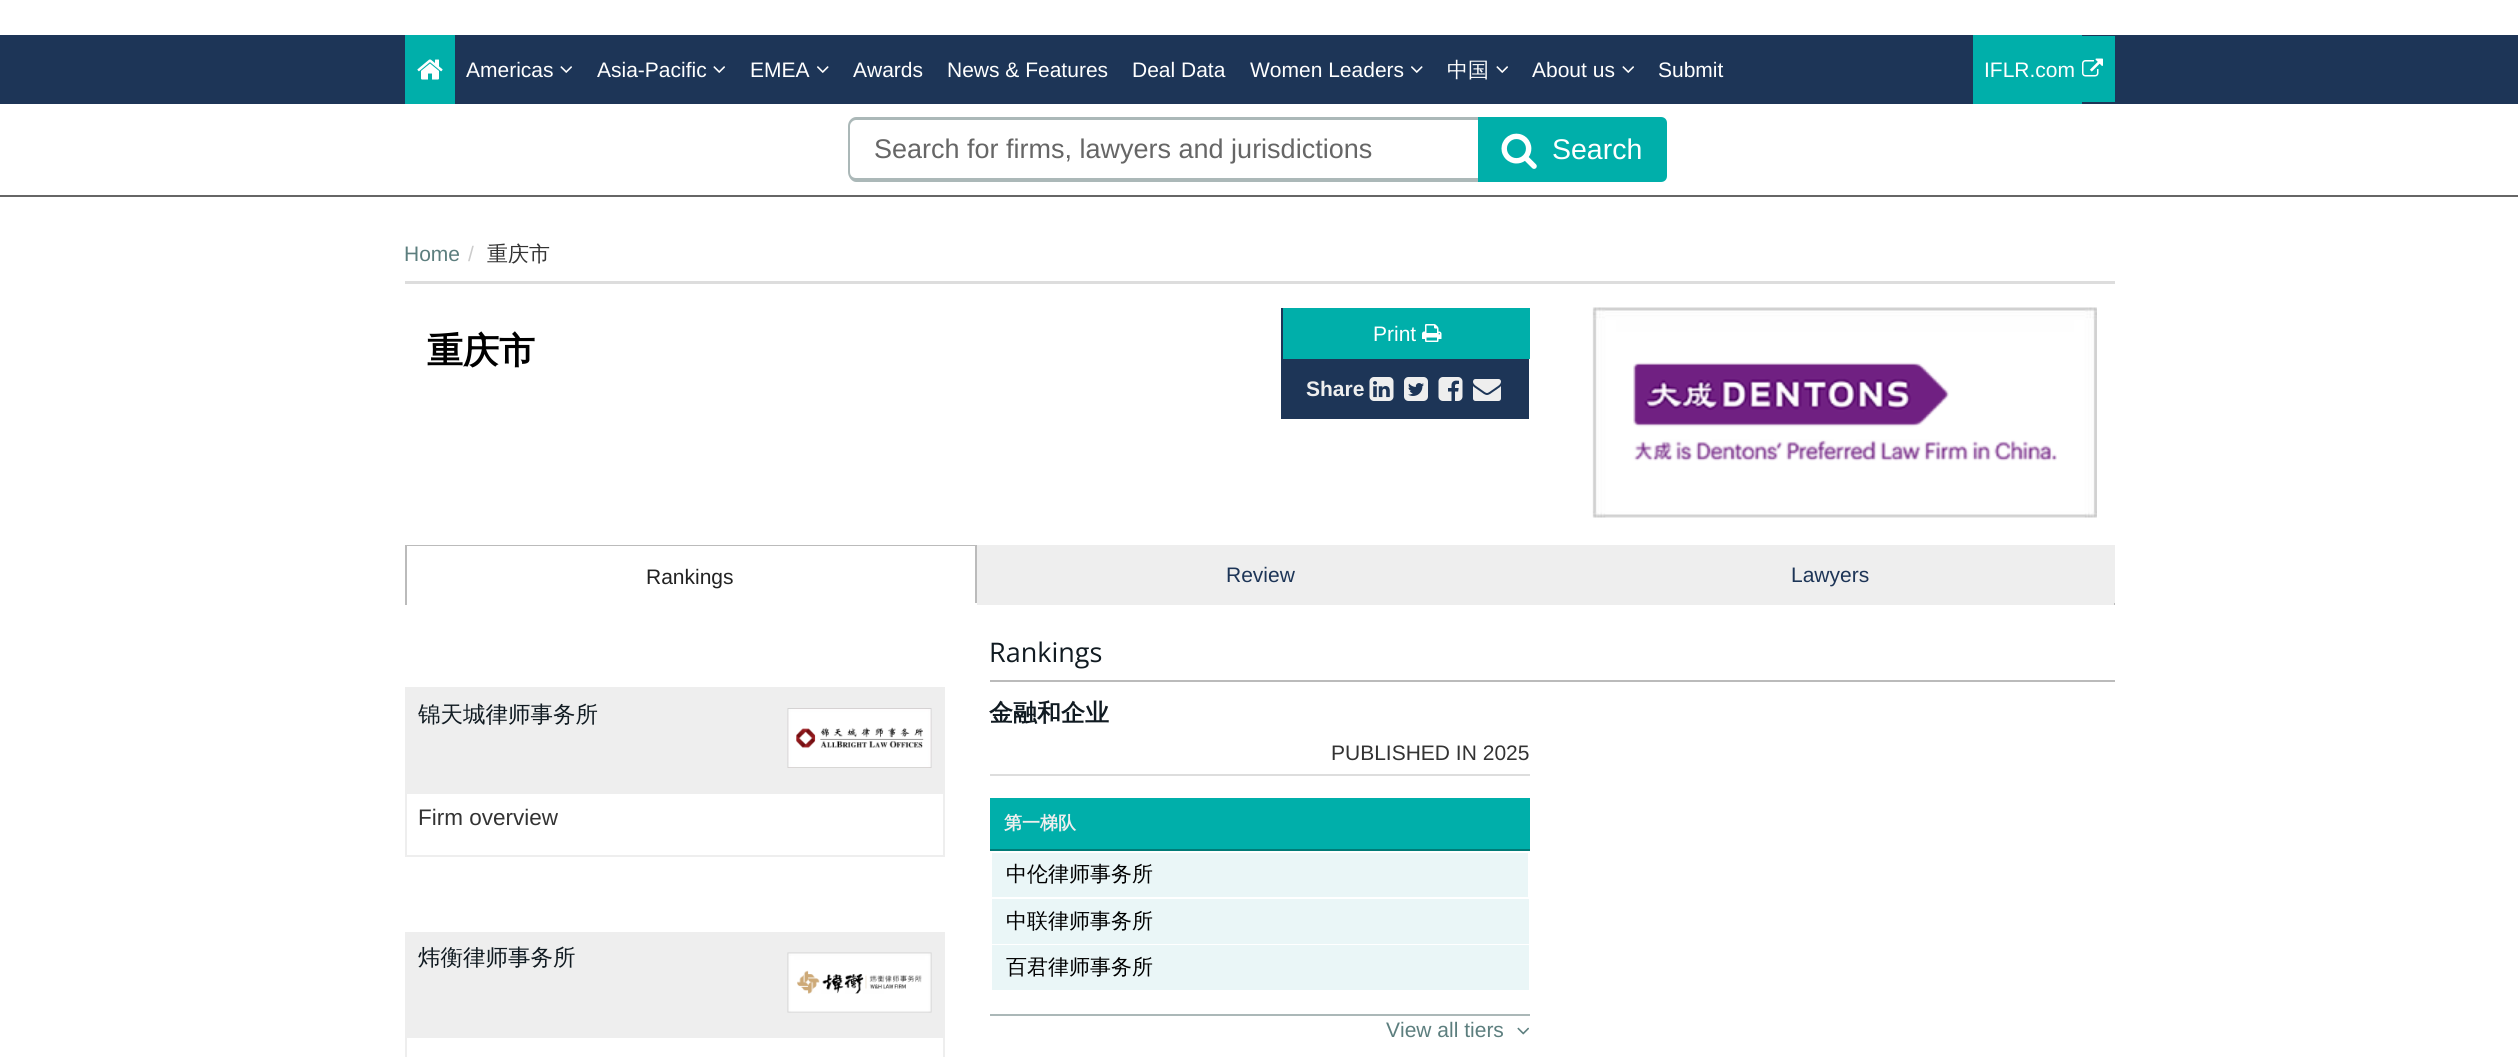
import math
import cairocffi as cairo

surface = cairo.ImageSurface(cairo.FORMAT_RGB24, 2518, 1057)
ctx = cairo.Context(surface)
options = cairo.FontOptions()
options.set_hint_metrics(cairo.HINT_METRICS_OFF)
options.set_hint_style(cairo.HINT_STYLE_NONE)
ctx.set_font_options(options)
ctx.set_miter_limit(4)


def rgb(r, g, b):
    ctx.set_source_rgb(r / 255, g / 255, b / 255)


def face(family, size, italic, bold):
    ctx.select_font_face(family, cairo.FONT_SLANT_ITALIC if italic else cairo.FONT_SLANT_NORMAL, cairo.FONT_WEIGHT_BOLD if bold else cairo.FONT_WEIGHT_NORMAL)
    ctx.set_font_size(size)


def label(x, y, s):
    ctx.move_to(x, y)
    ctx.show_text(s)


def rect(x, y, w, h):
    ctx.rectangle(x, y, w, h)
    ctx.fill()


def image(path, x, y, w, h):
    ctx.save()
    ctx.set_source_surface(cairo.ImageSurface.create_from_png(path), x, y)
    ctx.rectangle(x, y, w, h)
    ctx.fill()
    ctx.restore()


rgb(255, 255, 255)
ctx.paint()
rgb(29, 53, 87)
rect(0, 35, 2518, 69)
rgb(0, 175, 170)
rect(405, 35, 50, 69)
image('image0.png', 417, 59, 26, 21)
face('Liberation Sans', 21, 0, 0)
rgb(255, 255, 255)
label(466, 77, 'Americas')
image('image1.png', 560, 66, 12, 7)
label(597, 77, 'Asia-Pacific')
image('image1.png', 713, 66, 12, 7)
label(750, 77, 'EMEA')
image('image2.png', 817, 66, 12, 7)
label(853, 77, 'Awards')
label(947, 77, 'News & Features')
label(1132, 77, 'Deal Data')
label(1250, 77, 'Women Leaders')
image('image2.png', 1411, 66, 12, 7)
face('WenQuanYi Zen Hei Medium', 21, 0, 0)
label(1447, 77, '中国')
image('image1.png', 1496, 66, 12, 7)
face('Liberation Sans', 21, 0, 0)
label(1532, 77, 'About us')
image('image1.png', 1622, 66, 12, 7)
label(1658, 77, 'Submit')
rgb(0, 175, 170)
rect(1973, 35, 109, 69)
rect(2082, 36, 33, 66)
rgb(255, 255, 255)
label(1984, 77, 'IFLR.com')
image('image3.png', 2082, 58, 21, 19)
rgb(102, 102, 102)
rect(0, 195, 2518, 2)
rgb(171, 184, 184)
ctx.set_fill_rule(cairo.FILL_RULE_EVEN_ODD)
ctx.new_path()
ctx.move_to(856, 117)
ctx.line_to(1478, 117)
ctx.line_to(1478, 182)
ctx.line_to(856, 182)
ctx.curve_to(852, 182, 848, 177, 848, 172)
ctx.line_to(848, 126)
ctx.curve_to(848, 121, 852, 117, 856, 117)
ctx.close_path()
ctx.move_to(856, 120)
ctx.line_to(1478, 120)
ctx.line_to(1478, 178)
ctx.line_to(856, 178)
ctx.curve_to(853, 178, 850, 176, 850, 172)
ctx.line_to(850, 126)
ctx.curve_to(850, 123, 853, 120, 856, 120)
ctx.close_path()
ctx.fill()
face('Liberation Sans', 27, 0, 0)
rgb(102, 102, 102)
label(874, 158, 'Search for firms, lawyers and jurisdictions')
rgb(0, 175, 170)
ctx.new_path()
ctx.move_to(1478, 117)
ctx.line_to(1661, 117)
ctx.curve_to(1664.5, 117, 1667, 119.5, 1667, 123)
ctx.line_to(1667, 176)
ctx.curve_to(1667, 179.5, 1664.5, 182, 1661, 182)
ctx.line_to(1478, 182)
ctx.close_path()
ctx.fill()
image('image4.png', 1501, 133, 36, 36)
face('Liberation Sans', 28.5, 0, 0)
rgb(255, 255, 255)
label(1552, 159, 'Search')
rgb(221, 221, 221)
rect(405, 281, 1710, 3)
face('Liberation Sans', 21, 0, 0)
rgb(92, 126, 126)
label(404, 261, 'Home')
rgb(204, 204, 204)
label(468, 261, '/')
face('WenQuanYi Zen Hei Medium', 21, 0, 0)
rgb(51, 51, 51)
label(487, 261, '重庆市')
face('WenQuanYi Zen Hei', 36, 0, 1)
rgb(0, 0, 0)
label(427, 363, '重庆市')
rgb(29, 53, 87)
rect(1281, 308, 248, 111)
rgb(0, 175, 170)
rect(1283, 308, 247, 51)
face('Liberation Sans', 21, 0, 0)
rgb(255, 255, 255)
label(1373, 341, 'Print')
image('image5.png', 1422, 324, 20, 18)
face('Liberation Sans', 21, 0, 1)
rgb(238, 238, 238)
label(1306, 396, 'Share')
image('image6.png', 1369, 377, 25, 24)
image('image7.png', 1404, 377, 24, 24)
image('image8.png', 1438, 377, 25, 24)
image('image9.png', 1473, 379, 28, 22)
image('image10.png', 1592, 307, 505, 211)
rect(2114, 545, 1, 58)
rgb(187, 187, 187)
rect(2114, 603, 1, 2)
rect(405, 545, 572, 1)
rect(975, 545, 2, 60)
rgb(255, 255, 255)
rect(975, 603, 2, 2)
rgb(187, 187, 187)
rect(405, 545, 2, 60)
face('Liberation Sans', 21, 0, 0)
rgb(34, 34, 34)
label(646, 584, 'Rankings')
rgb(238, 238, 238)
rect(977, 545, 1137, 60)
rgb(29, 53, 87)
label(1226, 582, 'Review')
label(1791, 582, 'Lawyers')
ctx.rectangle(406, 688, 538, 168)
rgb(238, 238, 238)
ctx.stroke()
rect(407, 689, 536, 105)
face('WenQuanYi Zen Hei Medium', 22.5, 0, 0)
rgb(17, 27, 34)
label(418, 722, '锦天城律师事务所')
image('image11.png', 787, 708, 145, 60)
face('Liberation Sans', 22.5, 0, 0)
rgb(51, 51, 51)
label(418, 825, 'Firm overview')
ctx.rectangle(406, 933, 538, 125)
rgb(238, 238, 238)
ctx.stroke()
rect(407, 934, 536, 104)
face('WenQuanYi Zen Hei Medium', 22.5, 0, 0)
rgb(17, 27, 34)
label(418, 965, '炜衡律师事务所')
image('image12.png', 787, 952, 145, 61)
rgb(187, 187, 187)
rect(990, 680, 1125, 2)
face('Open Sans', 27, 0, 0)
rgb(17, 27, 34)
label(989, 662, 'Rankings')
rgb(221, 221, 221)
rect(990, 774, 540, 2)
face('WenQuanYi Zen Hei', 24, 0, 1)
rgb(17, 27, 34)
label(989, 721, '金融和企业')
face('Liberation Sans', 21, 0, 0)
rgb(51, 51, 51)
label(1331, 760, 'PUBLISHED IN 2025')
rgb(171, 184, 184)
rect(990, 1014, 540, 2)
rgb(0, 175, 170)
rect(990, 798, 540, 51)
rgb(0, 123, 119)
rect(990, 849, 540, 2)
face('WenQuanYi Zen Hei', 18, 0, 1)
rgb(238, 238, 238)
label(1004, 829, '第一梯队')
rgb(234, 246, 247)
rect(992, 853, 536, 44)
face('WenQuanYi Zen Hei Medium', 21, 0, 0)
rgb(0, 0, 0)
label(1006, 881, '中伦律师事务所')
rgb(234, 246, 247)
rect(992, 899, 537, 45)
rgb(0, 0, 0)
label(1006, 928, '中联律师事务所')
rgb(234, 246, 247)
rect(992, 945, 537, 45)
rgb(0, 0, 0)
label(1006, 974, '百君律师事务所')
face('Liberation Sans', 21, 0, 0)
rgb(92, 126, 126)
label(1386, 1037, 'View all tiers')
image('image13.png', 1517, 1027, 12, 8)
surface.write_to_png('render.png')
